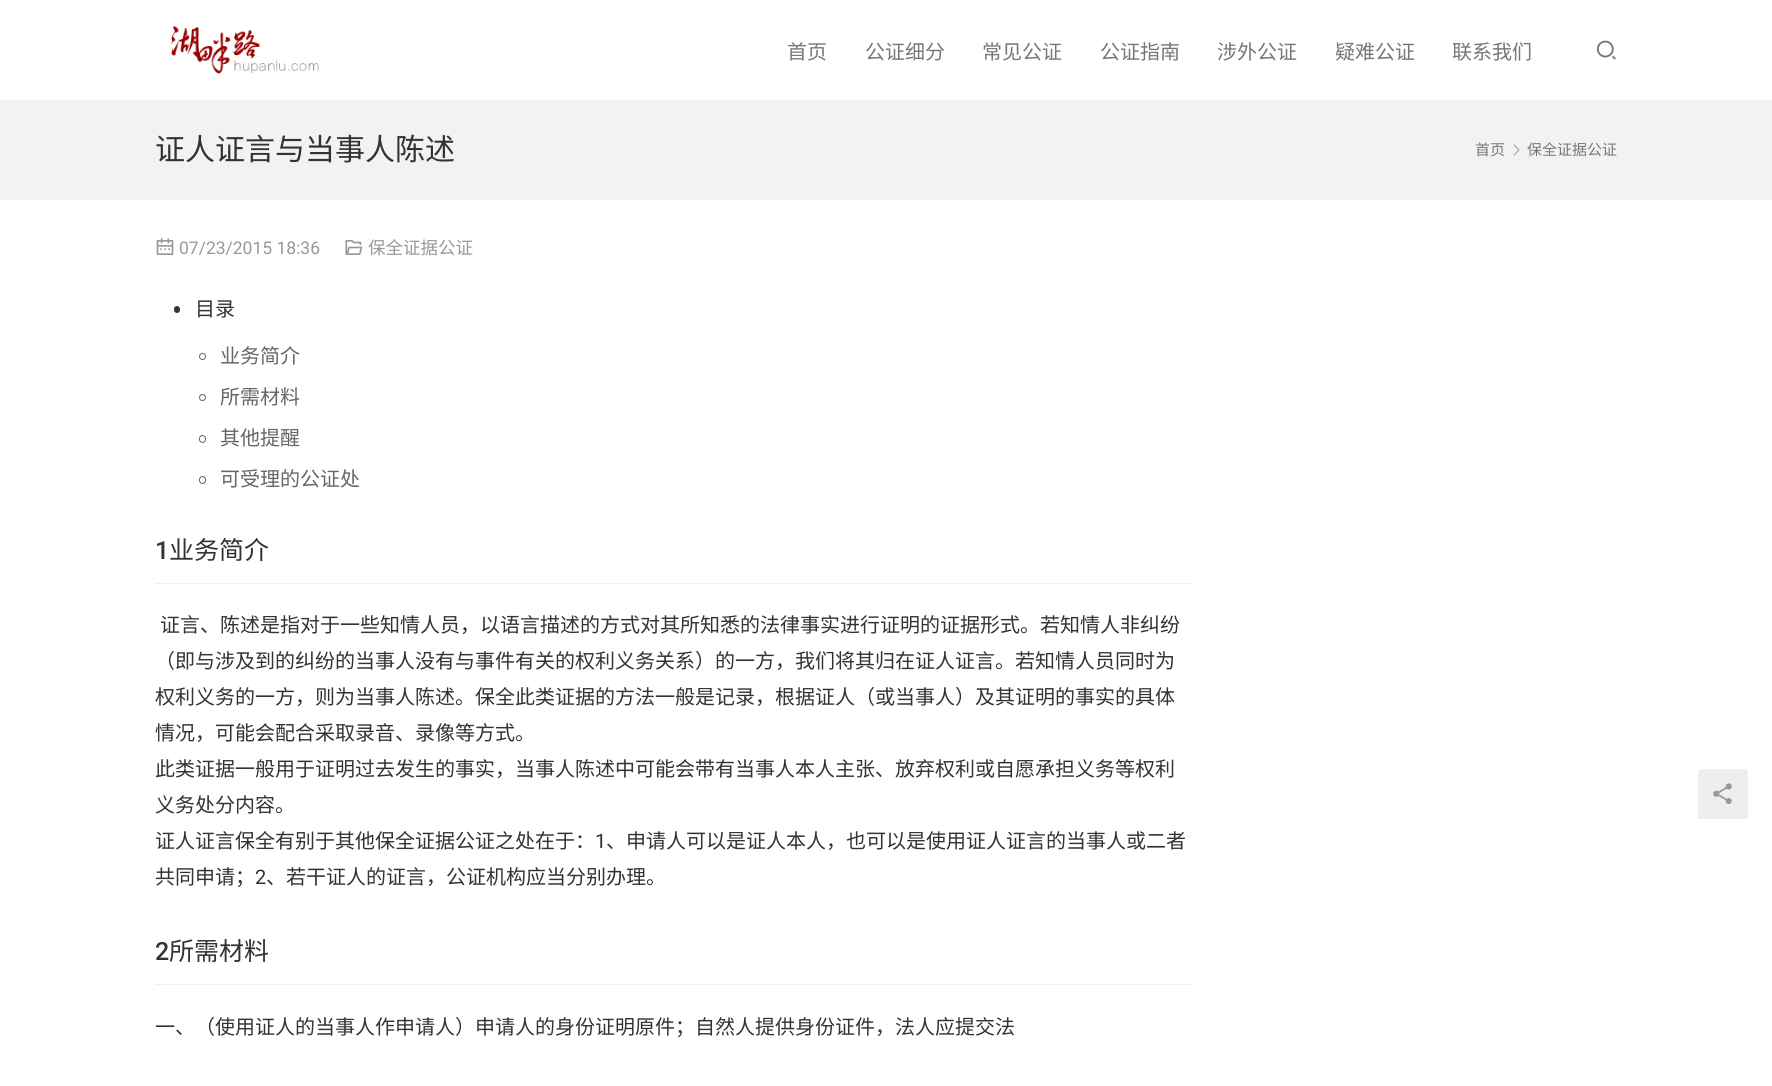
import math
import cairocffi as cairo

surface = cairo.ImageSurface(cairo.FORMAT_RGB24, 1772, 1086)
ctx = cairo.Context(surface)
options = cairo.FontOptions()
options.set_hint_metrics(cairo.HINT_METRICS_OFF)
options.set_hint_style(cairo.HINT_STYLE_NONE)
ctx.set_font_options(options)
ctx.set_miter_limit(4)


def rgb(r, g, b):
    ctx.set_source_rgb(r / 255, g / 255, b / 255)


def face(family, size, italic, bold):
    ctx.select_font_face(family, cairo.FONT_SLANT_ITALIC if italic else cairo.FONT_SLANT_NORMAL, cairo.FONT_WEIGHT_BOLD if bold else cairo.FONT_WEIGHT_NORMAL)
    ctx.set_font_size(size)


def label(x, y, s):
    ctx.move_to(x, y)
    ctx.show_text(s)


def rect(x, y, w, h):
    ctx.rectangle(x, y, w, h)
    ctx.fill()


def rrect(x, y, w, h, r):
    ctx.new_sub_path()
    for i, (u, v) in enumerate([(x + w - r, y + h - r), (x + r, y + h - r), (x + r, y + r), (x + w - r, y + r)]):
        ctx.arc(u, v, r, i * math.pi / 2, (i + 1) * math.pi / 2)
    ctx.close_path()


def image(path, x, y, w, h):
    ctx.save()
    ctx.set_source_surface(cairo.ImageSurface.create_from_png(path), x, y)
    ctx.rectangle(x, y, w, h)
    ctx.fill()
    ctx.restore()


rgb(255, 255, 255)
ctx.paint()
image('image0.png', 171, 26, 148, 48)
face('Noto Sans CJK SC', 20, 0, 0)
rgb(119, 119, 119)
label(787, 59, '首页')
label(865, 59, '公证细分')
label(982, 59, '常见公证')
label(1100, 59, '公证指南')
label(1217, 59, '涉外公证')
label(1335, 59, '疑难公证')
label(1452, 59, '联系我们')
image('image1.png', 1596, 40, 20, 20)
rgb(241, 243, 241)
rect(0, 100, 1772, 100)
face('Noto Sans CJK SC', 30, 0, 0)
rgb(51, 51, 51)
label(155, 160, '证人证言与当事人陈述')
face('Noto Sans CJK SC', 15, 0, 0)
rgb(119, 119, 119)
label(1475, 155, '首页')
image('image2.png', 1513, 144, 7, 12)
label(1527, 155, '保全证据公证')
image('image3.png', 156, 238, 18, 17)
face('Roboto', 17.5, 0, 0)
rgb(153, 153, 153)
label(179, 254, '07/23/2015 18:36')
image('image4.png', 345, 240, 18, 15)
face('Noto Sans CJK SC', 17.5, 0, 0)
label(368, 254, '保全证据公证')
rgb(51, 51, 51)
rrect(174, 306, 6, 7, 3)
ctx.fill()
face('Noto Sans CJK SC', 20, 0, 0)
label(195, 316, '目录')
ctx.new_path()
ctx.arc(202.5, 356.5, 3, 0, 2 * math.pi)
rgb(102, 102, 102)
ctx.set_line_width(1)
ctx.stroke()
label(220, 363, '业务简介')
ctx.new_path()
ctx.arc(202.5, 397.5, 3, 0, 2 * math.pi)
ctx.stroke()
label(220, 404, '所需材料')
rrect(199.5, 435.5, 6, 7, 3)
ctx.stroke()
label(220, 445, '其他提醒')
rrect(199.5, 476.5, 6, 7, 3)
ctx.stroke()
label(220, 486, '可受理的公证处')
rgb(239, 239, 239)
rect(155, 583, 1038, 1)
face('Roboto Medium', 25, 0, 0)
rgb(51, 51, 51)
label(155, 559, '1')
face('Noto Sans CJK SC', 25, 0, 0)
label(169, 559, '业务简介')
face('Noto Sans CJK SC', 20, 0, 0)
label(160, 632, '证言、陈述是指对于一些知情人员，以语言描述的方式对其所知悉的法律事实进行证明的证据形式。若知情人非纠纷')
label(155, 668, '（即与涉及到的纠纷的当事人没有与事件有关的权利义务关系）的一方，我们将其归在证人证言。若知情人员同时为')
label(155, 704, '权利义务的一方，则为当事人陈述。保全此类证据的方法一般是记录，根据证人（或当事人）及其证明的事实的具体')
label(155, 740, '情况，可能会配合采取录音、录像等方式。')
label(155, 776, '此类证据一般用于证明过去发生的事实，当事人陈述中可能会带有当事人本人主张、放弃权利或自愿承担义务等权利')
label(155, 812, '义务处分内容。')
label(155, 848, '证人证言保全有别于其他保全证据公证之处在于：')
face('Roboto', 20, 0, 0)
label(595, 848, '1')
face('Noto Sans CJK SC', 20, 0, 0)
label(606, 848, '、申请人可以是证人本人，也可以是使用证人证言的当事人或二者')
label(155, 884, '共同申请；')
face('Roboto', 20, 0, 0)
label(255, 884, '2')
face('Noto Sans CJK SC', 20, 0, 0)
label(266, 884, '、若干证人的证言，公证机构应当分别办理。')
rgb(239, 239, 239)
rect(155, 984, 1038, 1)
face('Roboto Medium', 25, 0, 0)
rgb(51, 51, 51)
label(155, 960, '2')
face('Noto Sans CJK SC', 25, 0, 0)
label(169, 960, '所需材料')
face('Noto Sans CJK SC', 20, 0, 0)
label(155, 1034, '一、（使用证人的当事人作申请人）申请人的身份证明原件；自然人提供身份证件，法人应提交法')
rgb(238, 238, 238)
ctx.new_path()
ctx.move_to(1702, 769)
ctx.line_to(1744, 769)
ctx.curve_to(1746, 769, 1748, 771, 1748, 773)
ctx.line_to(1748, 819)
ctx.line_to(1698, 819)
ctx.line_to(1698, 773)
ctx.curve_to(1698, 771, 1700, 769, 1702, 769)
ctx.close_path()
ctx.fill()
image('image5.png', 1713, 783, 19, 21)
surface.write_to_png('render.png')
